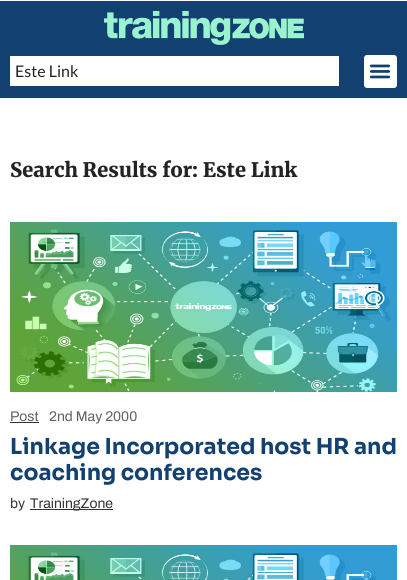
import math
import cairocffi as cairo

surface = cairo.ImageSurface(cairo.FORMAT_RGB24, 407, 580)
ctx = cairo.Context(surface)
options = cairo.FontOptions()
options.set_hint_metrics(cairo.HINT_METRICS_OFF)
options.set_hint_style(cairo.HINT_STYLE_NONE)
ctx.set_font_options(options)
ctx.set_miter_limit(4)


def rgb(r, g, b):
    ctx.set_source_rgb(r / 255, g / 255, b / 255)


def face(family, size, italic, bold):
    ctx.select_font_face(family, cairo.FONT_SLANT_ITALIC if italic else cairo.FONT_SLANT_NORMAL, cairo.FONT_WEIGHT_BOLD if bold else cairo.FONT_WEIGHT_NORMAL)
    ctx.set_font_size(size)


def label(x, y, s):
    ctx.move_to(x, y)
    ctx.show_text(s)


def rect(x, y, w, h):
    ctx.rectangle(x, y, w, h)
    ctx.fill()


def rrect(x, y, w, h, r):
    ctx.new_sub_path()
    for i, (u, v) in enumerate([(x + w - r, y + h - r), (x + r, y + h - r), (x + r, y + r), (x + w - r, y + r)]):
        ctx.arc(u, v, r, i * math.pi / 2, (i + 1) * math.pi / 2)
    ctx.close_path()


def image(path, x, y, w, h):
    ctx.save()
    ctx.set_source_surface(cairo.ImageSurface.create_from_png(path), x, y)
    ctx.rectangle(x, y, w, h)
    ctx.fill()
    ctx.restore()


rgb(255, 255, 255)
ctx.paint()
rgb(18, 64, 113)
rect(0, 1, 407, 97)
image('image0.png', 104, 11, 200, 34)
rgb(255, 255, 255)
rect(10, 56, 329, 30)
face('Lato', 16, 0, 0)
rgb(35, 35, 35)
label(15, 77, 'Este Link')
rgb(255, 255, 255)
rrect(364, 55, 33, 33, 3)
ctx.fill()
image('image1.png', 369, 64, 22, 15)
face('Merriweather Black', 20, 0, 0)
rgb(35, 35, 35)
label(10, 177, 'Search Results for: Este Link')
image('image2.png', 10, 222, 387, 170)
face('Archivo', 14, 0, 0)
rgb(97, 97, 97)
label(10, 421, 'Post')
rgb(51, 51, 51)
rect(10, 422, 29, 1)
rgb(97, 97, 97)
label(49, 421, '2nd May 2000')
face('Sora', 22, 0, 1)
rgb(18, 64, 113)
label(10, 454, 'Linkage Incorporated host HR and')
label(10, 480, 'coaching conferences')
face('Archivo', 14, 0, 0)
rgb(52, 52, 52)
label(10, 508, 'by')
rgb(51, 51, 51)
rect(30, 509, 83, 1)
rgb(52, 52, 52)
label(30, 508, 'TrainingZone')
image('image3.png', 10, 545, 387, 35)
surface.write_to_png('render.png')
